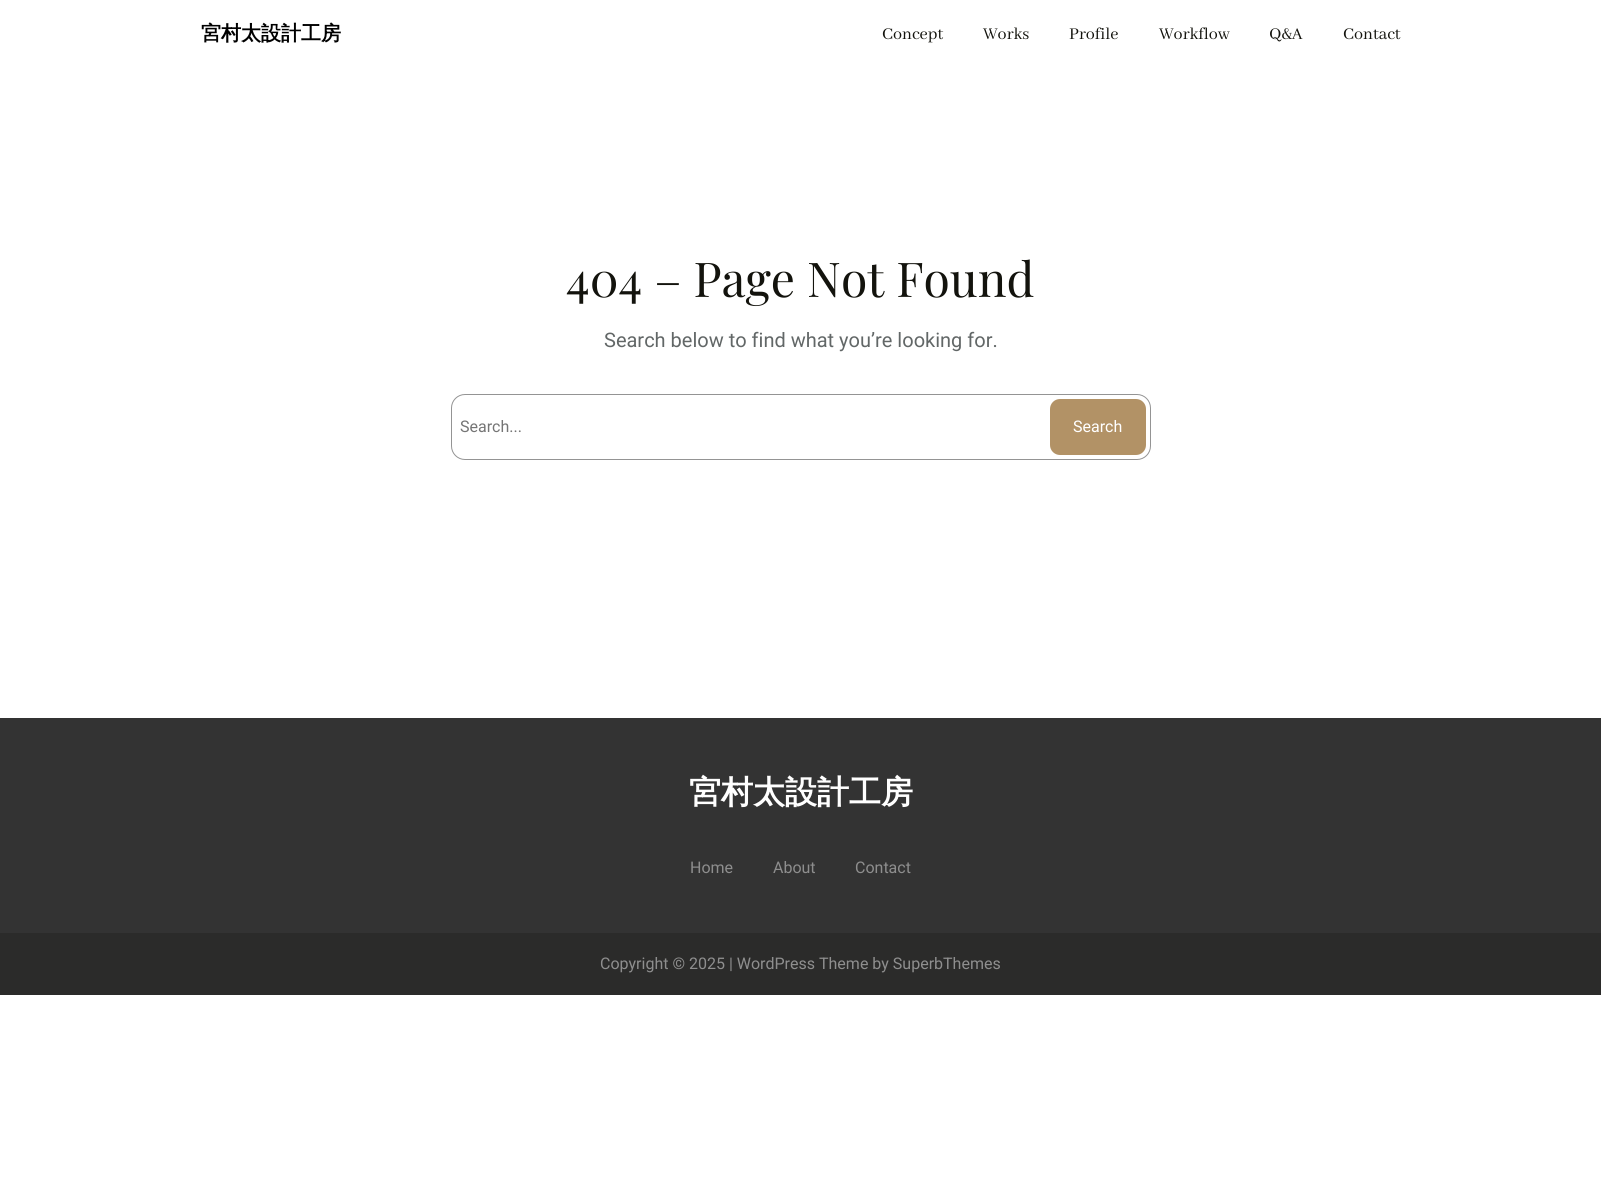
import math
import cairocffi as cairo

surface = cairo.ImageSurface(cairo.FORMAT_RGB24, 1601, 1186)
ctx = cairo.Context(surface)
options = cairo.FontOptions()
options.set_hint_metrics(cairo.HINT_METRICS_OFF)
options.set_hint_style(cairo.HINT_STYLE_NONE)
ctx.set_font_options(options)
ctx.set_miter_limit(4)


def rgb(r, g, b):
    ctx.set_source_rgb(r / 255, g / 255, b / 255)


def face(family, size, italic, bold):
    ctx.select_font_face(family, cairo.FONT_SLANT_ITALIC if italic else cairo.FONT_SLANT_NORMAL, cairo.FONT_WEIGHT_BOLD if bold else cairo.FONT_WEIGHT_NORMAL)
    ctx.set_font_size(size)


def label(x, y, s):
    ctx.move_to(x, y)
    ctx.show_text(s)


def rect(x, y, w, h):
    ctx.rectangle(x, y, w, h)
    ctx.fill()


def rrect(x, y, w, h, r):
    ctx.new_sub_path()
    for i, (u, v) in enumerate([(x + w - r, y + h - r), (x + r, y + h - r), (x + r, y + r), (x + w - r, y + r)]):
        ctx.arc(u, v, r, i * math.pi / 2, (i + 1) * math.pi / 2)
    ctx.close_path()


rgb(255, 255, 255)
ctx.paint()
face('WenQuanYi Zen Hei', 20, 0, 1)
rgb(0, 0, 0)
label(201, 40, '宮村太設計工房')
face('Abhaya Libre', 18, 0, 0)
rgb(19, 19, 13)
label(882, 39, 'Concept')
label(983, 39, 'Works')
label(1069, 39, 'Profile')
label(1159, 39, 'Workflow')
label(1269, 39, 'Q&A')
label(1343, 39, 'Contact')
face('Playfair Display', 48, 0, 0)
label(566, 297, '404 – Page Not Found')
face('Roboto', 20, 0, 0)
rgb(98, 103, 103)
label(604, 347, 'Search below to find what you’re looking for.')
rrect(451.5, 394.5, 699, 65, 13.5)
rgb(148, 148, 148)
ctx.set_line_width(1)
ctx.stroke()
face('Roboto', 16, 0, 0)
rgb(117, 117, 117)
label(460, 432, 'Search...')
rgb(178, 146, 102)
rrect(1050, 399, 96, 56, 10)
ctx.fill()
rgb(255, 255, 255)
label(1073, 432, 'Search')
rgb(51, 51, 51)
rect(0, 718, 1601, 215)
face('WenQuanYi Zen Hei', 32, 0, 1)
rgb(255, 255, 255)
label(689, 803, '宮村太設計工房')
face('Roboto', 16, 0, 0)
rgb(142, 142, 142)
label(690, 873, 'Home')
label(773, 873, 'About')
label(855, 873, 'Contact')
rgb(43, 43, 42)
rect(0, 933, 1601, 62)
rgb(142, 142, 142)
label(600, 969, 'Copyright © 2025 | WordPress Theme by SuperbThemes')
surface.write_to_png('render.png')
